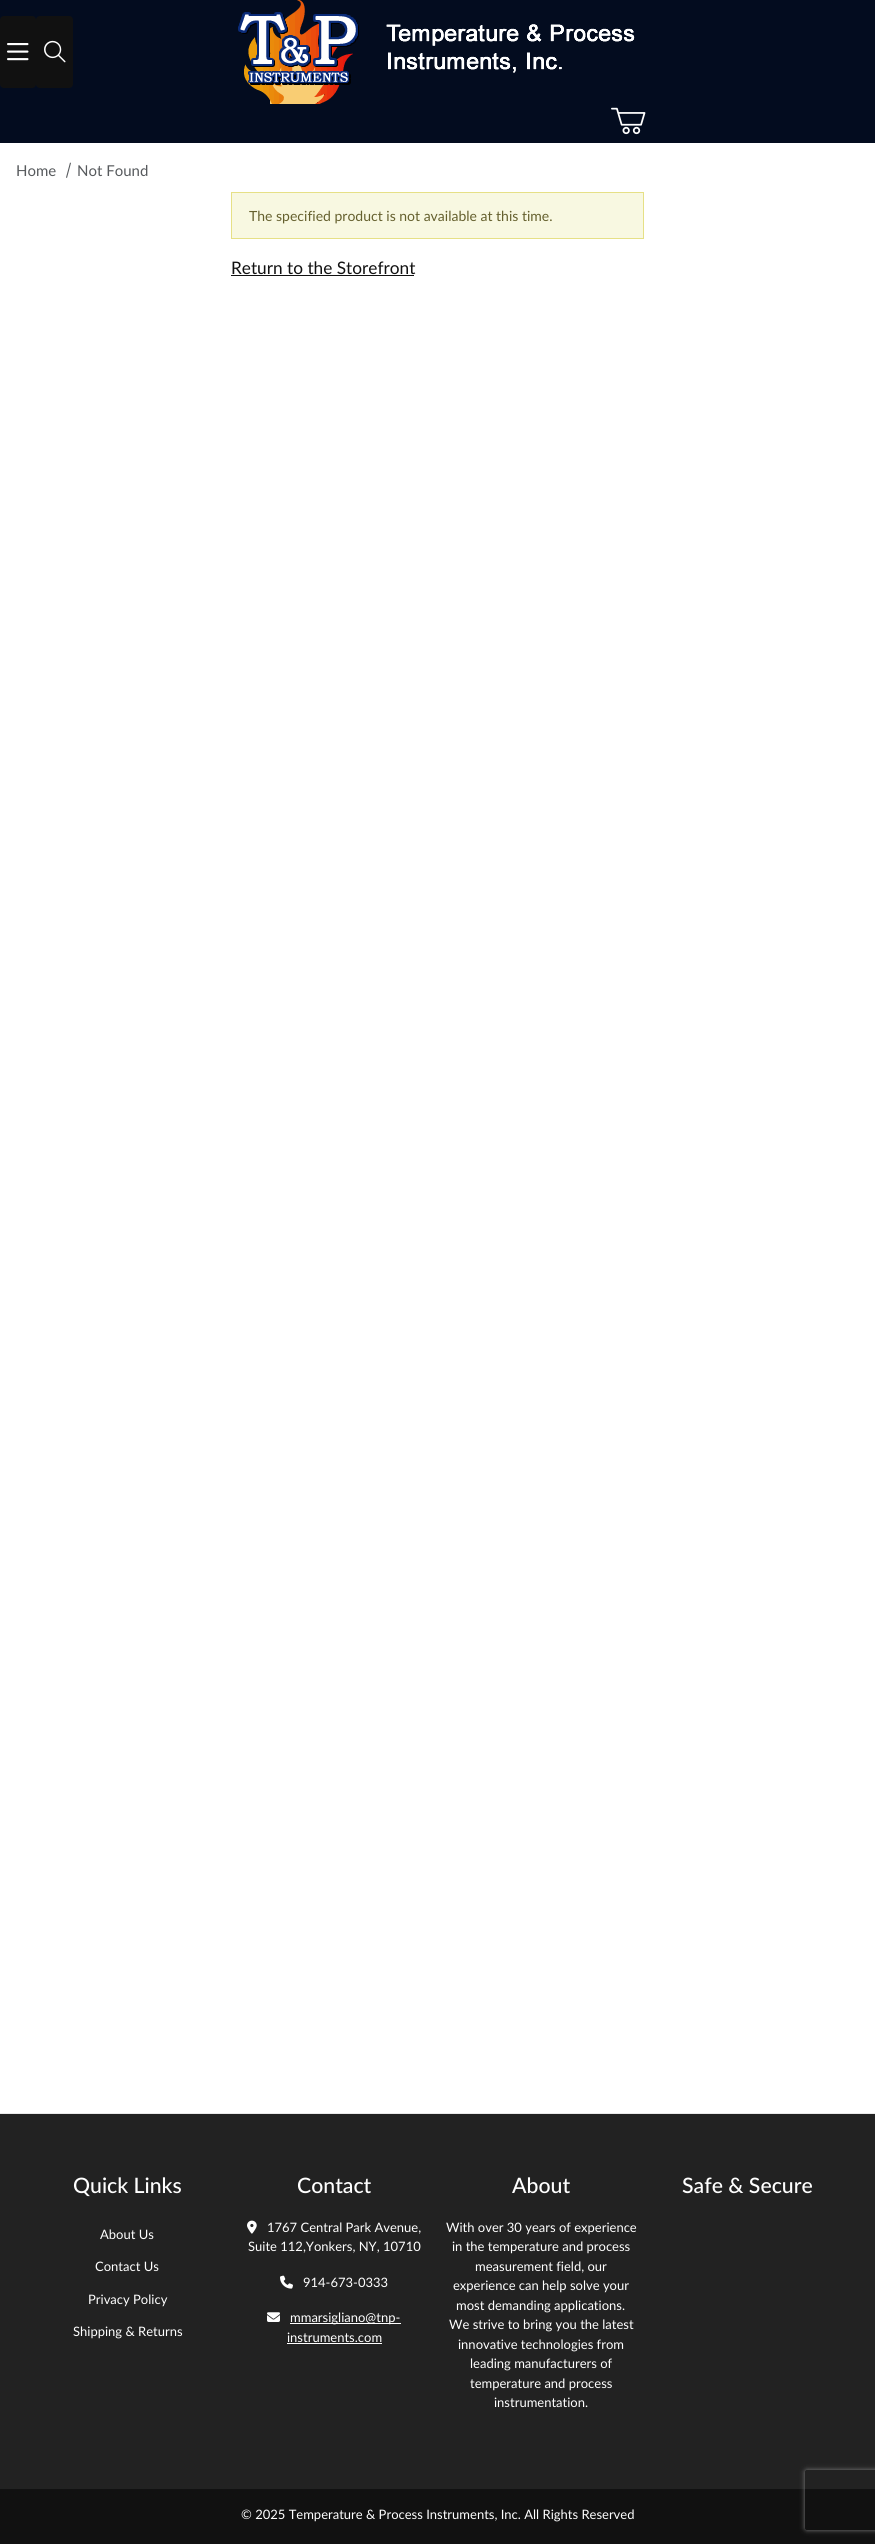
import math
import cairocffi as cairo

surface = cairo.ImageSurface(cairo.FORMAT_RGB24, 875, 2544)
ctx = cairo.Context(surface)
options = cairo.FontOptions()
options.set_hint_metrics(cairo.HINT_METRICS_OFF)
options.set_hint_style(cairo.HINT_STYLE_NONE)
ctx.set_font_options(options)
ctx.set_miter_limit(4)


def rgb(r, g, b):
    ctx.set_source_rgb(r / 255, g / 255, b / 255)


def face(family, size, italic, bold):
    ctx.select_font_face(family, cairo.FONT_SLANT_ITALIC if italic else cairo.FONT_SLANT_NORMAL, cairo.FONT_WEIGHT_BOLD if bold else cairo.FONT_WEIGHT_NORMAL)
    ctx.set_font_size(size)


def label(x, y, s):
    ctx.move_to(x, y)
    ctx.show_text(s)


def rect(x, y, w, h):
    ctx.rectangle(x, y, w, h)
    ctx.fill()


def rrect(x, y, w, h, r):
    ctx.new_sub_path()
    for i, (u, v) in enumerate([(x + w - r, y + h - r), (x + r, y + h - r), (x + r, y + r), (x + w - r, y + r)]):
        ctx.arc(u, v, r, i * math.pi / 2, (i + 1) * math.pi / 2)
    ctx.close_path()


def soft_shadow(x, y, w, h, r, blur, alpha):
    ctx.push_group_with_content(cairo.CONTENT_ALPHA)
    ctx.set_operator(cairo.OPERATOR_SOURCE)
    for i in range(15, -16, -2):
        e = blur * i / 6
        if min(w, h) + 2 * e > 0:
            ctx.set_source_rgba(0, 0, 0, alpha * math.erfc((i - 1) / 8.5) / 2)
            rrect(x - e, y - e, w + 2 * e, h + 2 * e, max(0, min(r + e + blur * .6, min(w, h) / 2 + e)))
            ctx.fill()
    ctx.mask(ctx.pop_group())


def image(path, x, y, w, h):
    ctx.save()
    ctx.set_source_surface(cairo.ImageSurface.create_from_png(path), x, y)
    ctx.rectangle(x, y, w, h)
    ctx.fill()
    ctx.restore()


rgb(255, 255, 255)
ctx.paint()
rgb(3, 12, 31)
rect(0, 0, 875, 143)
rgb(17, 17, 17)
rrect(0, 16, 36, 72, 4)
ctx.fill()
image('image0.png', 7, 43, 22, 18)
rrect(36, 16, 37, 72, 4)
ctx.fill()
image('image1.png', 44, 40, 22, 23)
image('image2.png', 238, 0, 397, 104)
image('image3.png', 611, 107, 35, 28)
face('Lato', 15, 0, 0)
rgb(87, 90, 93)
label(16, 176, 'Home')
ctx.new_path()
ctx.move_to(70, 162.5)
ctx.line_to(71, 163)
ctx.line_to(67, 178)
ctx.line_to(66, 177.5)
ctx.close_path()
ctx.fill()
label(77, 176, 'Not Found')
rgb(248, 248, 225)
ctx.rectangle(231.5, 192.5, 412, 46)
ctx.fill_preserve()
rgb(230, 224, 134)
ctx.set_line_width(1)
ctx.stroke()
face('Lato', 14, 0, 0)
rgb(101, 96, 46)
label(249, 221, 'The specified product is not available at this time.')
face('Lato', 17.25, 0, 0)
rgb(17, 17, 17)
label(231, 274, 'Return to the Storefront')
rect(231, 275, 183, 1)
rgb(34, 34, 34)
rect(0, 2114, 875, 375)
rgb(234, 234, 234)
rect(0, 2113, 875, 1)
face('Lato Medium', 21.25, 0, 0)
rgb(255, 255, 255)
label(73, 2193, 'Quick Links')
face('Lato', 13, 0, 0)
label(100, 2239, 'About Us')
label(95, 2271, 'Contact Us')
label(88, 2304, 'Privacy Policy')
label(73, 2336, 'Shipping & Returns')
face('Lato Medium', 21.25, 0, 0)
label(297, 2193, 'Contact')
image('image4.png', 247, 2220, 10, 14)
face('Lato', 13, 0, 0)
label(267, 2232, '1767 Central Park Avenue,')
label(248, 2251, 'Suite 112,Yonkers, NY, 10710')
image('image5.png', 280, 2275, 13, 14)
label(303, 2287, '914-673-0333')
image('image6.png', 267, 2312, 13, 10)
rect(290, 2323, 111, 1)
label(290, 2322, 'mmarsigliano@tnp-')
label(287, 2342, 'instruments.com')
rect(287, 2343, 95, 1)
face('Lato Medium', 21.25, 0, 0)
label(512, 2193, 'About')
face('Lato', 13, 0, 0)
label(446, 2232, 'With over 30 years of experience')
label(452, 2251, 'in the temperature and process')
label(475, 2271, 'measurement field, our')
label(453, 2290, 'experience can help solve your')
label(456, 2310, 'most demanding applications.')
label(449, 2329, 'We strive to bring you the latest')
label(458, 2349, 'innovative technologies from')
label(470, 2368, 'leading manufacturers of')
label(470, 2388, 'temperature and process')
label(494, 2407, 'instrumentation.')
face('Lato Medium', 21.25, 0, 0)
label(682, 2193, 'Safe & Secure')
rgb(17, 17, 17)
rect(0, 2489, 875, 55)
face('Lato', 13, 0, 0)
rgb(255, 255, 255)
label(241, 2519, '© 2025 Temperature & Process Instruments, Inc. All Rights Reserved')
ctx.save()
ctx.set_fill_rule(cairo.FILL_RULE_EVEN_ODD)
ctx.new_path()
ctx.move_to(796, 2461)
ctx.line_to(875, 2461)
ctx.line_to(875, 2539)
ctx.line_to(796, 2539)
ctx.close_path()
ctx.move_to(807, 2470)
ctx.line_to(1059, 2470)
ctx.curve_to(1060, 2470, 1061, 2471, 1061, 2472)
ctx.line_to(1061, 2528)
ctx.curve_to(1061, 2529, 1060, 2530, 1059, 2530)
ctx.line_to(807, 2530)
ctx.curve_to(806, 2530, 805, 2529, 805, 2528)
ctx.line_to(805, 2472)
ctx.curve_to(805, 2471, 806, 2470, 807, 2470)
ctx.close_path()
ctx.clip()
rgb(128, 128, 128)
soft_shadow(805, 2470, 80, 60, 2, 2.5, 1)
ctx.restore()
surface.write_to_png('render.png')
